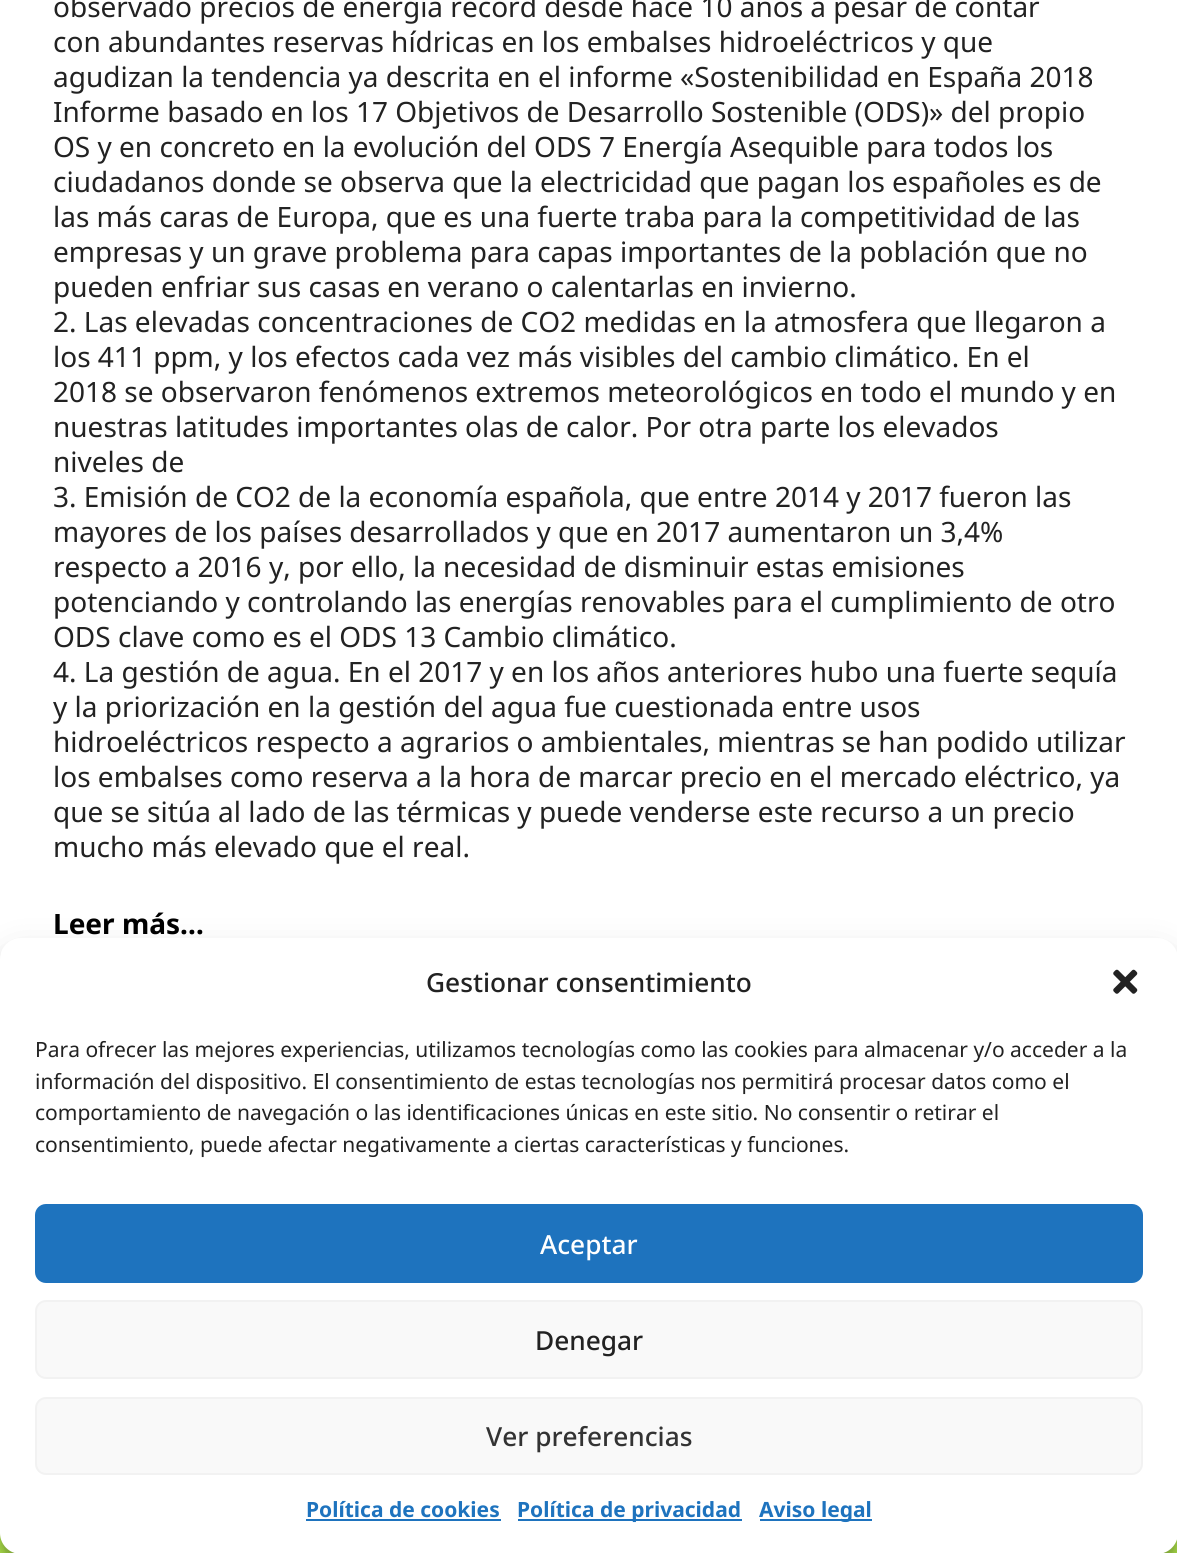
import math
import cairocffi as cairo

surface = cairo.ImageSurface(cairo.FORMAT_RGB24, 1177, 1553)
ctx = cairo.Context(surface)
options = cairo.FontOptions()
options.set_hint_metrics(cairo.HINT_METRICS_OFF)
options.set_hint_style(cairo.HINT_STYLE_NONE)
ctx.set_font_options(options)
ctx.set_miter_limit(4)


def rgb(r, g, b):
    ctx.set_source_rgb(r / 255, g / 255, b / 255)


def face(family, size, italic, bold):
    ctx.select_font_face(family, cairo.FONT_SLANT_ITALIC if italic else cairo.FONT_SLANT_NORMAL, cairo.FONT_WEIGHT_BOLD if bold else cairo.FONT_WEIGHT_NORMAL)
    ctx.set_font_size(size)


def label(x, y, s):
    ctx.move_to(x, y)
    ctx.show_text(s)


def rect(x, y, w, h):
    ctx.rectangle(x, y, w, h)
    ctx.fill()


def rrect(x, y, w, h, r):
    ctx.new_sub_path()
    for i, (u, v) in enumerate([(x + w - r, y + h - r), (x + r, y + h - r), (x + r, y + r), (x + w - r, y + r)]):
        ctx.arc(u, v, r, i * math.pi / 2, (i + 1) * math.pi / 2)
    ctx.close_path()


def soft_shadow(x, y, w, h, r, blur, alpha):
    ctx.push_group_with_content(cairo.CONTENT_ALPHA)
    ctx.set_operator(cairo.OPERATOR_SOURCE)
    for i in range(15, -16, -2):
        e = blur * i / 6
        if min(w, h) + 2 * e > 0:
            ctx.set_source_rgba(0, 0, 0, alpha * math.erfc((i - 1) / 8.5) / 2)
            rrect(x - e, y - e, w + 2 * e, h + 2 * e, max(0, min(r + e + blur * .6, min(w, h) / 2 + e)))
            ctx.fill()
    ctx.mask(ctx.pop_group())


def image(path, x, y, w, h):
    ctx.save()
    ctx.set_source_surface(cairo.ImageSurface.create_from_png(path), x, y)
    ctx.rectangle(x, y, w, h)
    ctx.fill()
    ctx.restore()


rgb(255, 255, 255)
ctx.paint()
face('Noto Sans', 28, 0, 0)
rgb(34, 34, 34)
label(53, 17, 'observado precios de energía record desde hace 10 años a pesar de contar')
label(53, 52, 'con abundantes reservas hídricas en los embalses hidroeléctricos y que')
label(53, 87, 'agudizan la tendencia ya descrita en el informe «Sostenibilidad en España 2018')
label(53, 122, 'Informe basado en los 17 Objetivos de Desarrollo Sostenible (ODS)» del propio')
label(53, 157, 'OS y en concreto en la evolución del ODS 7 Energía Asequible para todos los')
label(53, 192, 'ciudadanos donde se observa que la electricidad que pagan los españoles es de')
label(53, 227, 'las más caras de Europa, que es una fuerte traba para la competitividad de las')
label(53, 262, 'empresas y un grave problema para capas importantes de la población que no')
label(53, 297, 'pueden enfriar sus casas en verano o calentarlas en invierno.')
label(53, 332, '2. Las elevadas concentraciones de CO2 medidas en la atmosfera que llegaron a')
label(53, 367, 'los 411 ppm, y los efectos cada vez más visibles del cambio climático. En el')
label(53, 402, '2018 se observaron fenómenos extremos meteorológicos en todo el mundo y en')
label(53, 437, 'nuestras latitudes importantes olas de calor. Por otra parte los elevados')
label(53, 472, 'niveles de')
label(53, 507, '3. Emisión de CO2 de la economía española, que entre 2014 y 2017 fueron las')
label(53, 542, 'mayores de los países desarrollados y que en 2017 aumentaron un 3,4%')
label(53, 577, 'respecto a 2016 y, por ello, la necesidad de disminuir estas emisiones')
label(53, 612, 'potenciando y controlando las energías renovables para el cumplimiento de otro')
label(53, 647, 'ODS clave como es el ODS 13 Cambio climático.')
label(53, 682, '4. La gestión de agua. En el 2017 y en los años anteriores hubo una fuerte sequía')
label(53, 717, 'y la priorización en la gestión del agua fue cuestionada entre usos')
label(53, 752, 'hidroeléctricos respecto a agrarios o ambientales, mientras se han podido utilizar')
label(53, 787, 'los embalses como reserva a la hora de marcar precio en el mercado eléctrico, ya')
label(53, 822, 'que se sitúa al lado de las térmicas y puede venderse este recurso a un precio')
label(53, 857, 'mucho más elevado que el real.')
face('Noto Sans', 28, 0, 1)
rgb(0, 0, 0)
label(53, 934, 'Leer más…')
rgb(187, 244, 81)
rect(0, 1533, 1177, 20)
rgb(0, 0, 0)
soft_shadow(0, 949, 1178, 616, 21, 5, 0.23)
soft_shadow(0, 956, 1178, 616, 21, 17.5, 0.19)
rgb(255, 255, 255)
rrect(0, 938, 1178, 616, 21)
ctx.fill()
face('Noto Sans Medium', 26.25, 0, 0)
rgb(34, 34, 34)
label(426, 992, 'Gestionar consentimiento')
image('image0.png', 1113, 969, 25, 25)
face('Noto Sans', 21, 0, 0)
label(35, 1057, 'Para ofrecer las mejores experiencias, utilizamos tecnologías como las cookies para almacenar y/o acceder a la')
label(35, 1089, 'información del dispositivo. El consentimiento de estas tecnologías nos permitirá procesar datos como el')
label(35, 1120, 'comportamiento de navegación o las identificaciones únicas en este sitio. No consentir o retirar el')
label(35, 1152, 'consentimiento, puede afectar negativamente a ciertas características y funciones.')
rgb(30, 115, 190)
rrect(36, 1205, 1106, 77, 10)
ctx.fill_preserve()
ctx.stroke()
face('Noto Sans Medium', 26.25, 0, 0)
rgb(255, 255, 255)
label(540, 1254, 'Aceptar')
rgb(249, 249, 249)
rrect(36, 1301, 1106, 77, 10)
ctx.fill_preserve()
rgb(242, 242, 242)
ctx.stroke()
rgb(34, 34, 34)
label(535, 1350, 'Denegar')
rgb(249, 249, 249)
rrect(36, 1398, 1106, 76, 10)
ctx.fill_preserve()
rgb(242, 242, 242)
ctx.stroke()
rgb(51, 51, 51)
label(486, 1446, 'Ver preferencias')
face('Noto Sans', 21, 0, 1)
rgb(30, 115, 190)
label(306, 1517, 'Política de cookies')
rect(306, 1519, 195, 2)
rect(518, 1519, 224, 2)
label(517, 1517, 'Política de privacidad')
rect(760, 1519, 112, 2)
label(759, 1517, 'Aviso legal')
surface.write_to_png('render.png')
